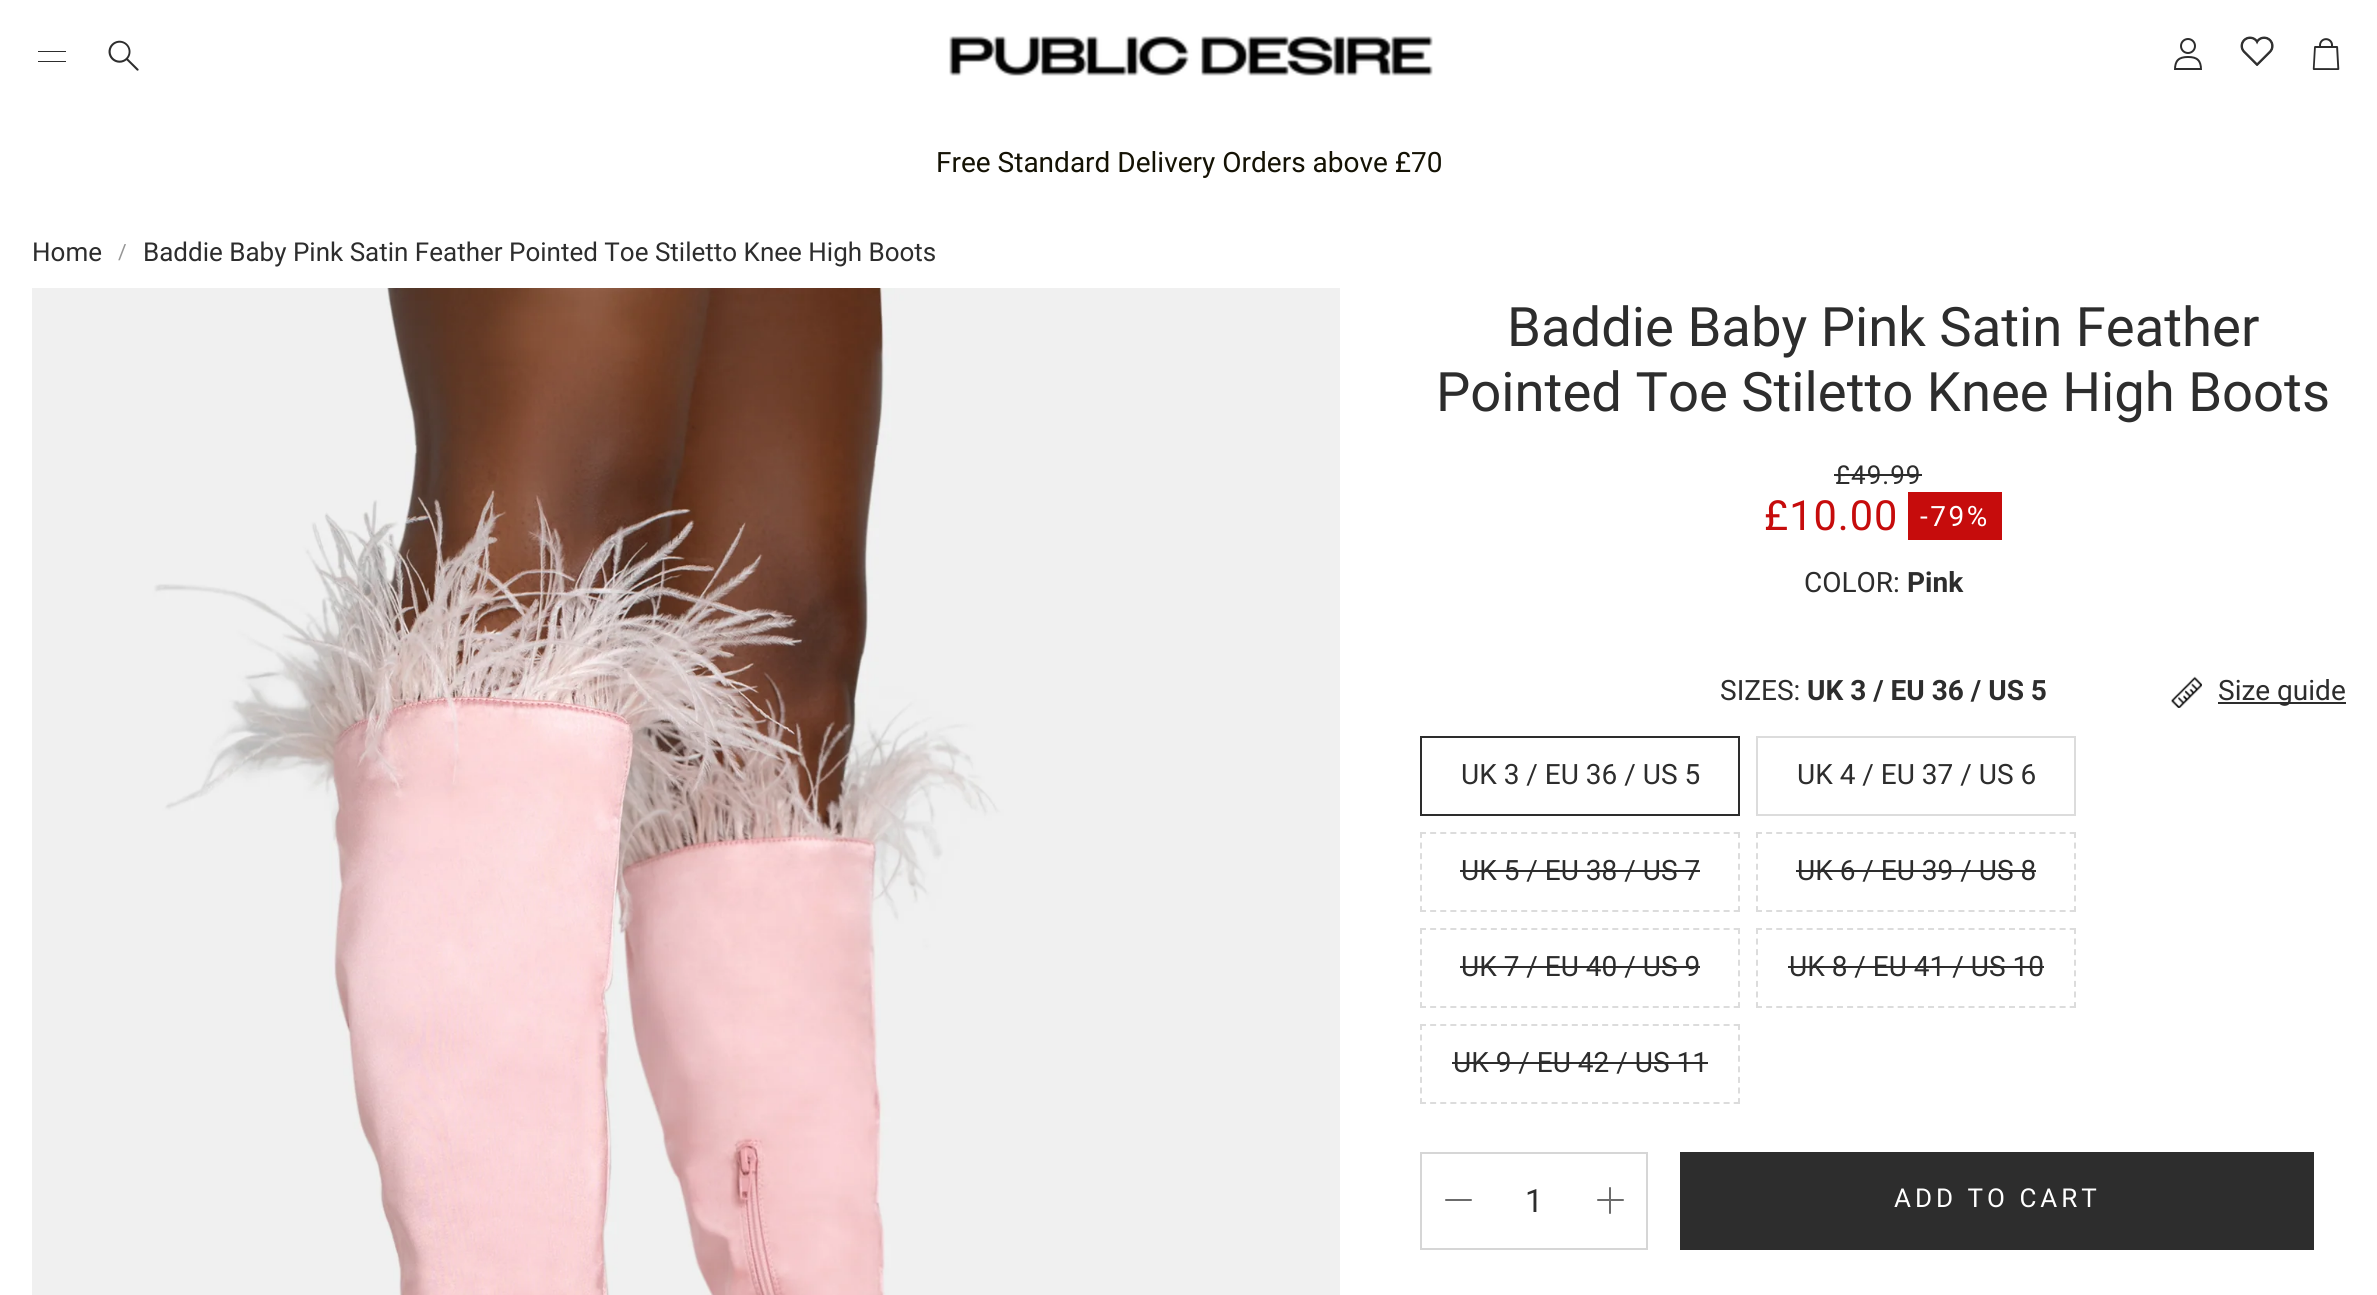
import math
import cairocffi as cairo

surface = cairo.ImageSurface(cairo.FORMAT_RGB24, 2377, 1295)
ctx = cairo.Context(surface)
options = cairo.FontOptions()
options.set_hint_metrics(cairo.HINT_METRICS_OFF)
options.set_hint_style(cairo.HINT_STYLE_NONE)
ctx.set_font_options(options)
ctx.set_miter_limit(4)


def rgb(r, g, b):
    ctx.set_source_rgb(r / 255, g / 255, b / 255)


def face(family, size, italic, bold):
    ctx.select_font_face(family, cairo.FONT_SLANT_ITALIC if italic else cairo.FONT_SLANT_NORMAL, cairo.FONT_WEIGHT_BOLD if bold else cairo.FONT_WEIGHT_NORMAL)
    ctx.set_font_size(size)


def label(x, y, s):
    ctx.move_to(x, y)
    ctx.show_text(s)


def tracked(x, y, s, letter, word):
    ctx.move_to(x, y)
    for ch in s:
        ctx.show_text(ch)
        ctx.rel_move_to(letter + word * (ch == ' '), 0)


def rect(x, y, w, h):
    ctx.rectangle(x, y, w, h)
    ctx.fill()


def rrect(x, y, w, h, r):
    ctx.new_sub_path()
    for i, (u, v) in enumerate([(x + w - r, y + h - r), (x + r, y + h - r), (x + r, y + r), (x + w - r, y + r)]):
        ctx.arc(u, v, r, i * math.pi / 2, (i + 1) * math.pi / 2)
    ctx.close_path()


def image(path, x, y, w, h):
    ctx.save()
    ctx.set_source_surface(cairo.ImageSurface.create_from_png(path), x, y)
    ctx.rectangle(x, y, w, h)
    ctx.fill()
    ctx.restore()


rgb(255, 255, 255)
ctx.paint()
rgb(45, 45, 45)
rect(38, 51, 28, 1)
rect(38, 61, 28, 1)
image('image0.png', 108, 40, 31, 31)
image('image1.png', 949, 36, 484, 40)
image('image2.png', 2174, 38, 28, 32)
image('image3.png', 2240, 36, 34, 30)
image('image4.png', 2312, 38, 28, 32)
face('Roboto', 28, 0, 0)
rgb(20, 18, 4)
label(936, 172, 'Free Standard Delivery Orders above £70')
face('Roboto', 26, 0, 0)
rgb(45, 45, 45)
label(32, 261, 'Home')
face('Roboto', 21, 0, 0)
rgb(150, 150, 150)
label(118, 259, '/')
face('Roboto', 26, 0, 0)
rgb(45, 45, 45)
label(143, 261, 'Baddie Baby Pink Satin Feather Pointed Toe Stiletto Knee High Boots')
image('image5.png', 32, 288, 1308, 1007)
face('Roboto', 54.4, 0, 0)
label(1507, 346, 'Baddie Baby Pink Satin Feather')
label(1436, 411, 'Pointed Toe Stiletto Knee High Boots')
face('Roboto', 26, 0, 0)
tracked(1835, 484, '£49.99', 1, 0)
rect(1834, 474, 88, 2)
face('Roboto', 41.5, 0, 0)
rgb(198, 12, 12)
tracked(1764, 530, '£10.00', 1, 0)
rect(1908, 492, 94, 48)
face('Roboto', 28, 0, 0)
rgb(255, 255, 255)
tracked(1920, 526, '-79%', 2.5, 0)
rgb(45, 45, 45)
label(1804, 592, 'COLOR:')
face('Roboto', 28, 0, 1)
label(1907, 592, 'Pink')
face('Roboto', 28, 0, 0)
label(1720, 700, 'SIZES:')
face('Roboto', 28, 0, 1)
label(1807, 700, 'UK 3 / EU 36 / US 5')
image('image6.png', 2171, 676, 31, 32)
rect(2218, 702, 128, 2)
face('Roboto', 28, 0, 0)
label(2218, 700, 'Size guide')
ctx.rectangle(1421, 737, 318, 78)
ctx.stroke()
label(1461, 784, 'UK 3 / EU 36 / US 5')
ctx.rectangle(1757, 737, 318, 78)
rgb(220, 220, 220)
ctx.stroke()
rgb(45, 45, 45)
label(1797, 784, 'UK 4 / EU 37 / US 6')
ctx.new_path()
ctx.move_to(1420, 833)
ctx.line_to(1740, 833)
rgb(220, 220, 220)
ctx.set_dash([6, 4.12])
ctx.stroke()
ctx.new_path()
ctx.move_to(1739, 832)
ctx.line_to(1739, 912)
ctx.set_dash([6, 4.58])
ctx.stroke()
ctx.new_path()
ctx.move_to(1420, 911)
ctx.line_to(1740, 911)
ctx.set_dash([6, 4.12])
ctx.stroke()
ctx.new_path()
ctx.move_to(1421, 832)
ctx.line_to(1421, 912)
ctx.set_dash([6, 4.58])
ctx.stroke()
rgb(45, 45, 45)
label(1461, 880, 'UK 5 / EU 38 / US 7')
rect(1460, 870, 240, 2)
ctx.new_path()
ctx.move_to(1756, 833)
ctx.line_to(2076, 833)
rgb(220, 220, 220)
ctx.set_dash([6, 4.12])
ctx.stroke()
ctx.new_path()
ctx.move_to(2075, 832)
ctx.line_to(2075, 912)
ctx.set_dash([6, 4.58])
ctx.stroke()
ctx.new_path()
ctx.move_to(1756, 911)
ctx.line_to(2076, 911)
ctx.set_dash([6, 4.12])
ctx.stroke()
ctx.new_path()
ctx.move_to(1757, 832)
ctx.line_to(1757, 912)
ctx.set_dash([6, 4.58])
ctx.stroke()
rgb(45, 45, 45)
label(1797, 880, 'UK 6 / EU 39 / US 8')
rect(1796, 870, 240, 2)
ctx.new_path()
ctx.move_to(1420, 929)
ctx.line_to(1740, 929)
rgb(220, 220, 220)
ctx.set_dash([6, 4.12])
ctx.stroke()
ctx.new_path()
ctx.move_to(1739, 928)
ctx.line_to(1739, 1008)
ctx.set_dash([6, 4.58])
ctx.stroke()
ctx.new_path()
ctx.move_to(1420, 1007)
ctx.line_to(1740, 1007)
ctx.set_dash([6, 4.12])
ctx.stroke()
ctx.new_path()
ctx.move_to(1421, 928)
ctx.line_to(1421, 1008)
ctx.set_dash([6, 4.58])
ctx.stroke()
rgb(45, 45, 45)
label(1461, 976, 'UK 7 / EU 40 / US 9')
rect(1460, 966, 240, 2)
ctx.new_path()
ctx.move_to(1756, 929)
ctx.line_to(2076, 929)
rgb(220, 220, 220)
ctx.set_dash([6, 4.12])
ctx.stroke()
ctx.new_path()
ctx.move_to(2075, 928)
ctx.line_to(2075, 1008)
ctx.set_dash([6, 4.58])
ctx.stroke()
ctx.new_path()
ctx.move_to(1756, 1007)
ctx.line_to(2076, 1007)
ctx.set_dash([6, 4.12])
ctx.stroke()
ctx.new_path()
ctx.move_to(1757, 928)
ctx.line_to(1757, 1008)
ctx.set_dash([6, 4.58])
ctx.stroke()
rgb(45, 45, 45)
label(1789, 976, 'UK 8 / EU 41 / US 10')
rect(1788, 966, 256, 2)
ctx.new_path()
ctx.move_to(1420, 1025)
ctx.line_to(1740, 1025)
rgb(220, 220, 220)
ctx.set_dash([6, 4.12])
ctx.stroke()
ctx.new_path()
ctx.move_to(1739, 1024)
ctx.line_to(1739, 1104)
ctx.set_dash([6, 4.58])
ctx.stroke()
ctx.new_path()
ctx.move_to(1420, 1103)
ctx.line_to(1740, 1103)
ctx.set_dash([6, 4.12])
ctx.stroke()
ctx.new_path()
ctx.move_to(1421, 1024)
ctx.line_to(1421, 1104)
ctx.set_dash([6, 4.58])
ctx.stroke()
rgb(45, 45, 45)
label(1453, 1072, 'UK 9 / EU 42 / US 11')
rect(1452, 1062, 256, 2)
ctx.rectangle(1421, 1153, 226, 96)
rgb(214, 214, 214)
ctx.set_dash([])
ctx.stroke()
rgb(107, 107, 107)
rrect(1445, 1199, 27, 2, 1)
ctx.fill()
face('Roboto', 32, 0, 0)
rgb(45, 45, 45)
label(1525, 1212, '1')
rgb(107, 107, 107)
rrect(1597, 1199, 27, 2, 1)
ctx.fill()
rrect(1609, 1187, 2, 27, 1)
ctx.fill()
rgb(45, 45, 45)
rect(1680, 1152, 634, 98)
face('Roboto', 26, 0, 0)
rgb(255, 255, 255)
tracked(1894, 1207, 'ADD TO CART', 4, 0)
surface.write_to_png('render.png')
